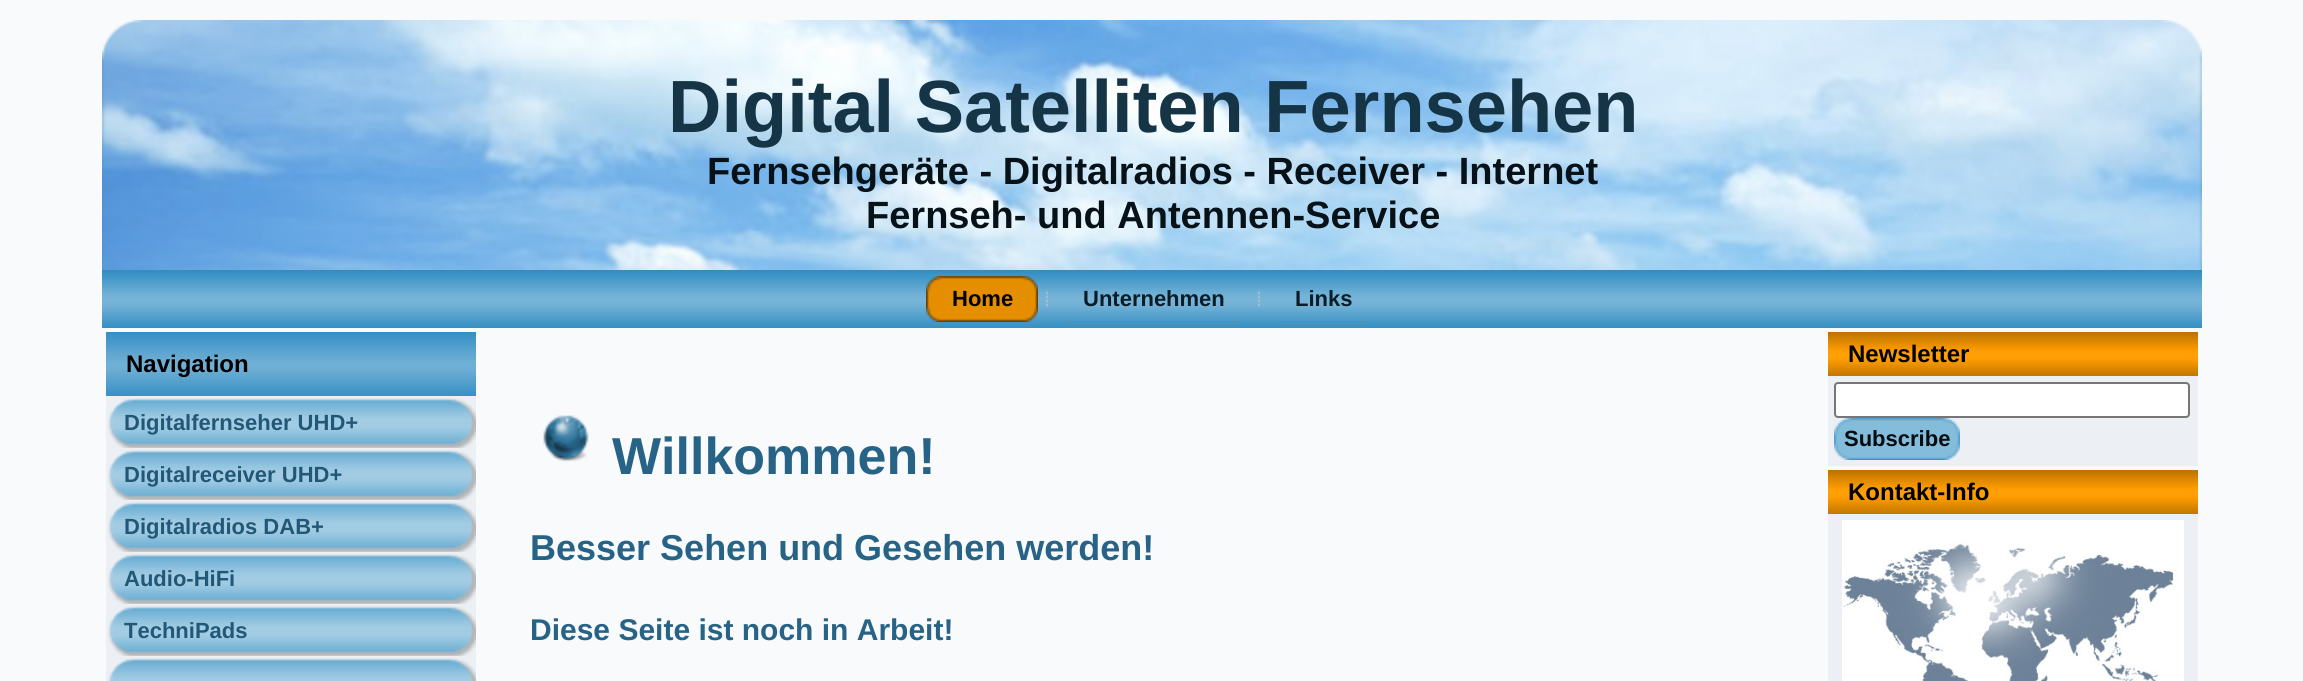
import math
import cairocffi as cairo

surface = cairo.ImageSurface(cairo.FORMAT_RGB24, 2303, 681)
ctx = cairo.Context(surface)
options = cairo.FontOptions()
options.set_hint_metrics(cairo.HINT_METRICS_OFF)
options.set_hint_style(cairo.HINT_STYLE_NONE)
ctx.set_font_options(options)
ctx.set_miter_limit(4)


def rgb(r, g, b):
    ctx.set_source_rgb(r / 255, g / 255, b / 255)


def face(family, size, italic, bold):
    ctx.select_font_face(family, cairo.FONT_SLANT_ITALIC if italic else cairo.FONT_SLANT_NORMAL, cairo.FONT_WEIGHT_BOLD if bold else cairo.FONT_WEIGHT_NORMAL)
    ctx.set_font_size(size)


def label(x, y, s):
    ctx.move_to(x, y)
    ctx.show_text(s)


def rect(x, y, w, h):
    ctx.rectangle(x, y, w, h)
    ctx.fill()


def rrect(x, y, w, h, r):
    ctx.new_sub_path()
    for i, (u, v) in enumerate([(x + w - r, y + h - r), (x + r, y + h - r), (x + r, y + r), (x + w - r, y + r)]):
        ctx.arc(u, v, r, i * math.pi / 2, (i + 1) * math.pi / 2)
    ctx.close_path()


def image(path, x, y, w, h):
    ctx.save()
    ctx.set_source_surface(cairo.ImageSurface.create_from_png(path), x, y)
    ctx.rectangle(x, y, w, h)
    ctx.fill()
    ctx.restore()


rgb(248, 250, 251)
ctx.paint()
image('image0.png', 102, 20, 2100, 250)
image('image1.png', 142, 60, 2020, 170)
face('Liberation Sans', 74, 0, 1)
rgb(21, 53, 71)
label(668, 132, 'Digital Satelliten Fernsehen')
face('Liberation Sans', 38, 0, 1)
rgb(7, 18, 24)
label(707, 184, 'Fernsehgeräte - Digitalradios - Receiver - Internet')
label(866, 228, 'Fernseh- und Antennen-Service')
image('image2.png', 102, 270, 2100, 58)
image('image3.png', 926, 276, 96, 46)
image('image4.png', 1022, 276, 16, 46)
face('Liberation Sans', 22, 0, 1)
rgb(0, 0, 0)
label(952, 306, 'Home')
image('image5.png', 1046, 291, 2, 16)
rgb(11, 29, 40)
label(1083, 306, 'Unternehmen')
image('image6.png', 1065, 321, 169, 1)
image('image7.png', 1234, 321, 8, 1)
image('image5.png', 1258, 291, 2, 16)
label(1295, 306, 'Links')
image('image8.png', 1277, 321, 85, 1)
image('image7.png', 1362, 321, 8, 1)
image('image9.png', 106, 332, 370, 64)
face('Liberation Sans', 24, 0, 1)
rgb(0, 0, 0)
label(126, 372, 'Navigation')
rgb(236, 240, 244)
rect(106, 396, 370, 285)
image('image10.png', 108, 398, 338, 50)
image('image11.png', 446, 398, 30, 50)
face('Liberation Sans', 22, 0, 1)
rgb(34, 88, 119)
label(124, 430, 'Digitalfernseher UHD+')
image('image10.png', 108, 450, 338, 50)
image('image11.png', 446, 450, 30, 50)
label(124, 482, 'Digitalreceiver UHD+')
image('image10.png', 108, 502, 338, 50)
image('image11.png', 446, 502, 30, 50)
label(124, 534, 'Digitalradios DAB+')
image('image10.png', 108, 554, 338, 50)
image('image11.png', 446, 554, 30, 50)
label(124, 586, 'Audio-HiFi')
image('image10.png', 108, 606, 338, 50)
image('image11.png', 446, 606, 30, 50)
label(124, 638, 'TechniPads')
image('image12.png', 108, 658, 338, 23)
image('image13.png', 446, 658, 30, 23)
image('image14.png', 543, 415, 46, 47)
face('Liberation Sans', 52, 0, 1)
rgb(39, 99, 134)
label(612, 474, 'Willkommen!')
face('Liberation Sans', 36, 0, 1)
label(530, 560, 'Besser Sehen und Gesehen werden!')
face('Liberation Sans', 30, 0, 1)
label(530, 640, 'Diese Seite ist noch in Arbeit!')
image('image15.png', 1828, 332, 370, 44)
face('Liberation Sans', 24, 0, 1)
rgb(0, 0, 0)
label(1848, 362, 'Newsletter')
rgb(236, 240, 244)
rect(1828, 376, 370, 90)
rgb(255, 255, 255)
rrect(1835, 383, 354, 34, 3)
ctx.fill_preserve()
rgb(118, 118, 118)
ctx.stroke()
image('image16.png', 1834, 418, 108, 42)
image('image17.png', 1942, 418, 18, 42)
face('Liberation Sans', 22, 0, 1)
rgb(5, 12, 16)
label(1844, 446, 'Subscribe')
image('image15.png', 1828, 470, 370, 44)
face('Liberation Sans', 24, 0, 1)
rgb(0, 0, 0)
label(1848, 500, 'Kontakt-Info')
rgb(236, 240, 244)
rect(1828, 514, 370, 167)
image('image18.png', 1842, 520, 342, 161)
surface.write_to_png('render.png')
